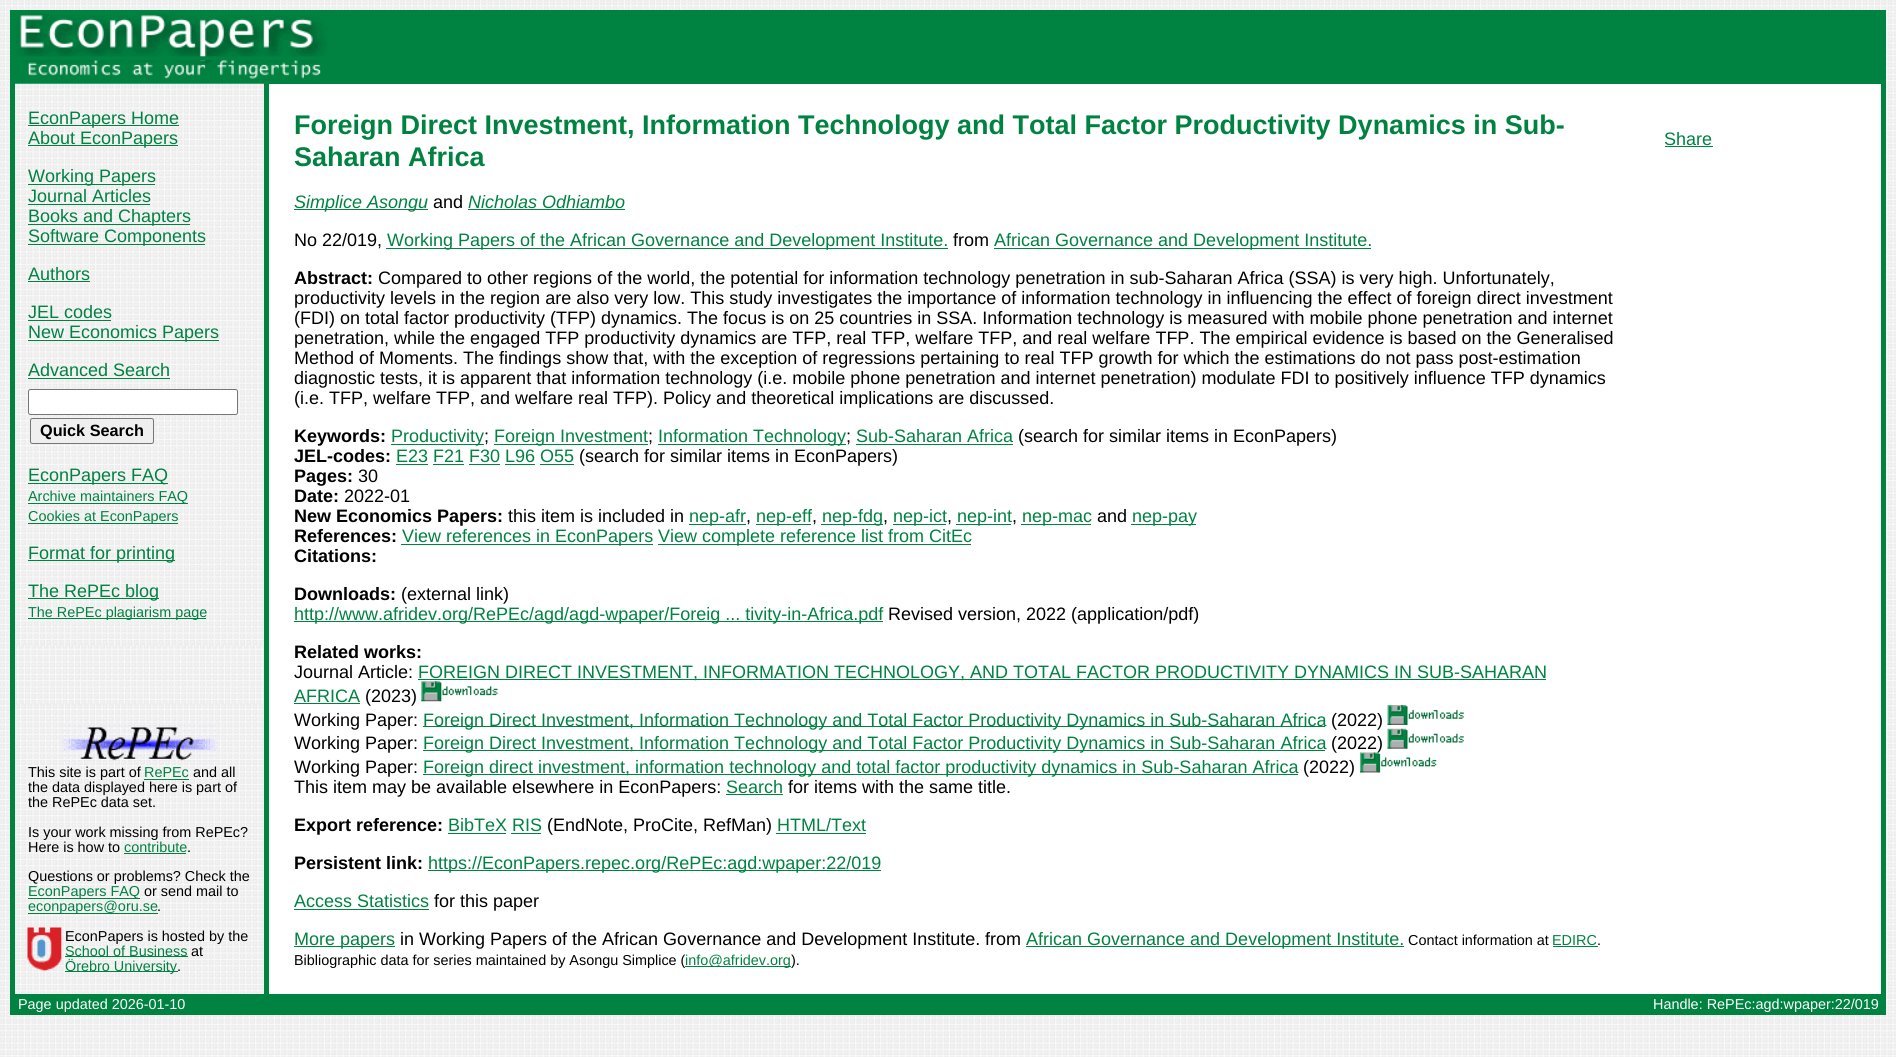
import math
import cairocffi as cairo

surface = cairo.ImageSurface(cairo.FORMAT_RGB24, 1896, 1057)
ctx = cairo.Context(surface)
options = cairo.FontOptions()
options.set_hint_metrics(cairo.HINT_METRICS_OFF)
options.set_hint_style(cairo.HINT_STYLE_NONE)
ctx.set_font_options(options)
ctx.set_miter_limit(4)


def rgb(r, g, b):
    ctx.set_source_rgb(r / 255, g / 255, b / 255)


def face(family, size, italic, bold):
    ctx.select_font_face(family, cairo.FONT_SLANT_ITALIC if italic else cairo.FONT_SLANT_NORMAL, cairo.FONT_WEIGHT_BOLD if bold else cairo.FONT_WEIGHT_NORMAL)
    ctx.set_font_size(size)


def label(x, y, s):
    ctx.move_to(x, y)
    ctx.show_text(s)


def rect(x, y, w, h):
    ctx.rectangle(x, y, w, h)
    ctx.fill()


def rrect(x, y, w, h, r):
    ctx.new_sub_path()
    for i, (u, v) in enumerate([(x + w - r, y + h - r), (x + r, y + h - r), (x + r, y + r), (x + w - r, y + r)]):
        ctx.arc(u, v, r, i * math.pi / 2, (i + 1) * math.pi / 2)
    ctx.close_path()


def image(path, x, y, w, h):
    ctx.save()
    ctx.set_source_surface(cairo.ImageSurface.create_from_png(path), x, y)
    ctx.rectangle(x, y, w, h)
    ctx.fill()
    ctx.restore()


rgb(255, 255, 255)
ctx.paint()
image('image0.png', 0, 0, 1896, 1057)
rgb(0, 130, 65)
rect(10, 10, 5, 1005)
rect(15, 10, 1866, 50)
image('image1.png', 16, 13, 312, 44)
rect(1881, 10, 5, 1005)
rect(15, 60, 1866, 24)
image('image2.png', 23, 60, 298, 19)
image('image3.png', 15, 83, 249, 562)
rect(28, 125, 151, 1)
face('Liberation Sans', 18, 0, 0)
label(28, 124, 'EconPapers Home')
rect(28, 145, 150, 1)
label(28, 144, 'About EconPapers')
rect(28, 184, 127, 1)
label(28, 182, 'Working Papers')
label(28, 202, 'Journal Articles')
rect(28, 204, 122, 1)
rect(28, 224, 162, 1)
label(28, 222, 'Books and Chapters')
rect(28, 244, 177, 1)
label(28, 242, 'Software Components')
label(28, 280, 'Authors')
rect(28, 281, 62, 1)
label(28, 318, 'JEL codes')
rect(28, 320, 83, 1)
rect(28, 340, 191, 1)
label(28, 338, 'New Economics Papers')
label(28, 376, 'Advanced Search')
rect(28, 378, 142, 1)
rgb(255, 255, 255)
rrect(28.5, 389.5, 209, 25, 2)
ctx.fill_preserve()
rgb(118, 118, 118)
ctx.set_line_width(1)
ctx.stroke()
rgb(239, 239, 239)
rrect(30.5, 418.5, 123, 25, 2)
ctx.fill_preserve()
rgb(118, 118, 118)
ctx.stroke()
face('Liberation Sans', 16.25, 0, 1)
rgb(0, 0, 0)
label(40, 436, 'Quick Search')
rgb(0, 130, 65)
rect(28, 483, 140, 1)
face('Liberation Sans', 18, 0, 0)
label(28, 481, 'EconPapers FAQ')
rect(28, 503, 160, 1)
face('Liberation Sans', 14.4, 0, 0)
label(28, 501, 'Archive maintainers FAQ')
rect(28, 523, 150, 1)
label(28, 521, 'Cookies at EconPapers')
rect(28, 560, 147, 1)
face('Liberation Sans', 18, 0, 0)
label(28, 559, 'Format for printing')
rect(28, 598, 131, 1)
label(28, 597, 'The RePEc blog')
rect(28, 618, 178, 1)
face('Liberation Sans', 14.4, 0, 0)
label(28, 617, 'The RePEc plagiarism page')
rect(264, 84, 5, 910)
rgb(255, 255, 255)
rect(269, 84, 1612, 910)
face('Liberation Sans', 27, 0, 1)
rgb(0, 130, 65)
label(294, 134, 'Foreign Direct Investment, Information Technology and Total Factor Productivity Dynamics in Sub-')
label(294, 166, 'Saharan Africa')
rect(294, 209, 134, 1)
face('Liberation Sans', 18, 1, 0)
label(294, 208, 'Simplice Asongu')
face('Liberation Sans', 18, 0, 0)
rgb(0, 0, 0)
label(433, 208, 'and')
face('Liberation Sans', 18, 1, 0)
rgb(0, 130, 65)
label(468, 208, 'Nicholas Odhiambo')
rect(468, 209, 157, 1)
face('Liberation Sans', 18, 0, 0)
rgb(0, 0, 0)
label(294, 246, 'No 22/019,')
rgb(0, 130, 65)
rect(386, 248, 562, 1)
label(387, 246, 'Working Papers of the African Governance and Development Institute.')
rgb(0, 0, 0)
label(953, 246, 'from')
rgb(0, 130, 65)
rect(994, 248, 377, 1)
label(994, 246, 'African Governance and Development Institute.')
face('Liberation Sans', 18, 0, 1)
rgb(0, 0, 0)
label(294, 284, 'Abstract:')
face('Liberation Sans', 18, 0, 0)
label(378, 284, 'Compared to other regions of the world, the potential for information technology penetration in sub-Saharan Africa (SSA) is very high. Unfortunately,')
label(294, 304, 'productivity levels in the region are also very low. This study investigates the importance of information technology in influencing the effect of foreign direct investment')
label(294, 324, '(FDI) on total factor productivity (TFP) dynamics. The focus is on 25 countries in SSA. Information technology is measured with mobile phone penetration and internet')
label(294, 344, 'penetration, while the engaged TFP productivity dynamics are TFP, real TFP, welfare TFP, and real welfare TFP. The empirical evidence is based on the Generalised')
label(294, 364, 'Method of Moments. The findings show that, with the exception of regressions pertaining to real TFP growth for which the estimations do not pass post-estimation')
label(294, 384, 'diagnostic tests, it is apparent that information technology (i.e. mobile phone penetration and internet penetration) modulate FDI to positively influence TFP dynamics')
label(294, 404, '(i.e. TFP, welfare TFP, and welfare real TFP). Policy and theoretical implications are discussed.')
face('Liberation Sans', 18, 0, 1)
label(294, 442, 'Keywords:')
rgb(0, 130, 65)
rect(391, 444, 93, 1)
face('Liberation Sans', 18, 0, 0)
label(391, 442, 'Productivity')
rgb(0, 0, 0)
label(484, 442, ';')
rgb(0, 130, 65)
rect(494, 444, 154, 1)
label(494, 442, 'Foreign Investment')
rgb(0, 0, 0)
label(648, 442, ';')
rgb(0, 130, 65)
rect(658, 444, 188, 1)
label(658, 442, 'Information Technology')
rgb(0, 0, 0)
label(846, 442, ';')
rgb(0, 130, 65)
label(856, 442, 'Sub-Saharan Africa')
rect(856, 444, 157, 1)
rgb(0, 0, 0)
label(1018, 442, '(search for similar items in EconPapers)')
face('Liberation Sans', 18, 0, 1)
label(294, 462, 'JEL-codes:')
face('Liberation Sans', 18, 0, 0)
rgb(0, 130, 65)
label(396, 462, 'E23 F21 F30 L96 O55')
rect(396, 464, 32, 1)
rgb(0, 0, 0)
label(579, 462, '(search for similar items in EconPapers)')
rgb(0, 130, 65)
rect(433, 464, 31, 1)
rect(469, 464, 31, 1)
rect(505, 464, 30, 1)
rect(540, 464, 34, 1)
face('Liberation Sans', 18, 0, 1)
rgb(0, 0, 0)
label(294, 482, 'Pages:')
face('Liberation Sans', 18, 0, 0)
label(358, 482, '30')
face('Liberation Sans', 18, 0, 1)
label(294, 502, 'Date:')
face('Liberation Sans', 18, 0, 0)
label(344, 502, '2022-01')
face('Liberation Sans', 18, 0, 1)
label(294, 522, 'New Economics Papers:')
face('Liberation Sans', 18, 0, 0)
label(508, 522, 'this item is included in')
rgb(0, 130, 65)
rect(689, 524, 57, 1)
label(689, 522, 'nep-afr')
rgb(0, 0, 0)
label(746, 522, ',')
rgb(0, 130, 65)
rect(756, 524, 55, 1)
label(756, 522, 'nep-eff')
rgb(0, 0, 0)
label(812, 522, ',')
rgb(0, 130, 65)
rect(821, 524, 62, 1)
label(822, 522, 'nep-fdg')
rgb(0, 0, 0)
label(883, 522, ',')
rgb(0, 130, 65)
rect(893, 524, 53, 1)
label(893, 522, 'nep-ict')
rgb(0, 0, 0)
label(947, 522, ',')
rgb(0, 130, 65)
rect(956, 524, 55, 1)
label(957, 522, 'nep-int')
rgb(0, 0, 0)
label(1012, 522, ',')
rgb(0, 130, 65)
rect(1021, 524, 70, 1)
label(1022, 522, 'nep-mac')
rgb(0, 0, 0)
label(1097, 522, 'and')
rgb(0, 130, 65)
rect(1131, 524, 65, 1)
label(1132, 522, 'nep-pay')
face('Liberation Sans', 18, 0, 1)
rgb(0, 0, 0)
label(294, 542, 'References:')
rgb(0, 130, 65)
rect(401, 544, 252, 1)
face('Liberation Sans', 18, 0, 0)
label(402, 542, 'View references in EconPapers')
rect(658, 544, 313, 1)
label(658, 542, 'View complete reference list from CitEc')
face('Liberation Sans', 18, 0, 1)
rgb(0, 0, 0)
label(294, 562, 'Citations:')
label(294, 600, 'Downloads:')
face('Liberation Sans', 18, 0, 0)
label(401, 600, '(external link)')
rgb(0, 130, 65)
rect(294, 621, 589, 1)
label(294, 620, 'http://www.afridev.org/RePEc/agd/agd-wpaper/Foreig ... tivity-in-Africa.pdf')
rgb(0, 0, 0)
label(888, 620, 'Revised version, 2022 (application/pdf)')
face('Liberation Sans', 18, 0, 1)
label(294, 658, 'Related works:')
face('Liberation Sans', 18, 0, 0)
label(294, 678, 'Journal Article:')
rgb(0, 130, 65)
rect(418, 679, 1128, 1)
label(418, 678, 'FOREIGN DIRECT INVESTMENT, INFORMATION TECHNOLOGY, AND TOTAL FACTOR PRODUCTIVITY DYNAMICS IN SUB‐SAHARAN')
label(294, 702, 'AFRICA')
rect(294, 703, 66, 1)
rgb(0, 0, 0)
label(365, 702, '(2023)')
image('image4.png', 421, 681, 77, 21)
label(294, 726, 'Working Paper:')
rgb(0, 130, 65)
rect(423, 726, 902, 1)
label(423, 726, 'Foreign Direct Investment, Information Technology and Total Factor Productivity Dynamics in Sub-Saharan Africa')
rgb(0, 0, 0)
label(1331, 726, '(2022)')
image('image5.png', 1387, 705, 77, 20)
label(294, 749, 'Working Paper:')
rgb(0, 130, 65)
rect(423, 750, 902, 1)
label(423, 749, 'Foreign Direct Investment, Information Technology and Total Factor Productivity Dynamics in Sub-Saharan Africa')
rgb(0, 0, 0)
label(1331, 749, '(2022)')
image('image6.png', 1387, 728, 77, 21)
label(294, 773, 'Working Paper:')
rgb(0, 130, 65)
rect(423, 774, 875, 1)
label(423, 773, 'Foreign direct investment, information technology and total factor productivity dynamics in Sub-Saharan Africa')
rgb(0, 0, 0)
label(1303, 773, '(2022)')
image('image7.png', 1360, 752, 77, 21)
label(294, 793, 'This item may be available elsewhere in EconPapers:')
rgb(0, 130, 65)
label(726, 793, 'Search')
rect(726, 794, 57, 1)
rgb(0, 0, 0)
label(788, 793, 'for items with the same title.')
face('Liberation Sans', 18, 0, 1)
label(294, 831, 'Export reference:')
face('Liberation Sans', 18, 0, 0)
rgb(0, 130, 65)
label(448, 831, 'BibTeX RIS')
rect(448, 833, 58, 1)
rgb(0, 0, 0)
label(547, 831, '(EndNote, ProCite, RefMan)')
rgb(0, 130, 65)
label(777, 831, 'HTML/Text')
rect(776, 833, 90, 1)
rect(511, 833, 30, 1)
face('Liberation Sans', 18, 0, 1)
rgb(0, 0, 0)
label(294, 869, 'Persistent link:')
rgb(0, 130, 65)
rect(428, 870, 453, 1)
face('Liberation Sans', 18, 0, 0)
label(428, 869, 'https://EconPapers.repec.org/RePEc:agd:wpaper:22/019')
label(294, 907, 'Access Statistics')
rect(294, 909, 135, 1)
rgb(0, 0, 0)
label(434, 907, 'for this paper')
rgb(0, 130, 65)
rect(294, 946, 101, 1)
label(294, 945, 'More papers')
rgb(0, 0, 0)
label(400, 945, 'in Working Papers of the African Governance and Development Institute.')
label(985, 945, 'from')
rgb(0, 130, 65)
rect(1026, 946, 378, 1)
label(1026, 945, 'African Governance and Development Institute.')
face('Liberation Sans', 14.4, 0, 0)
rgb(0, 0, 0)
label(1408, 945, 'Contact information at')
rgb(0, 130, 65)
label(1552, 945, 'EDIRC')
rgb(0, 0, 0)
label(1597, 945, '.')
rgb(0, 130, 65)
rect(1553, 946, 45, 1)
rgb(0, 0, 0)
label(294, 965, 'Bibliographic data for series maintained by Asongu Simplice (')
rgb(0, 130, 65)
rect(685, 966, 106, 1)
label(685, 965, 'info@afridev.org')
rgb(0, 0, 0)
label(791, 965, ').')
face('Liberation Sans', 18, 0, 0)
rgb(0, 130, 65)
label(1664, 145, 'Share')
rect(1665, 146, 48, 1)
image('image8.png', 15, 704, 249, 290)
image('image9.png', 60, 725, 159, 37)
face('Liberation Sans', 14.4, 0, 0)
rgb(0, 0, 0)
label(28, 777, 'This site is part of')
rgb(0, 130, 65)
label(144, 777, 'RePEc')
rect(144, 779, 45, 1)
rgb(0, 0, 0)
label(193, 777, 'and all')
label(28, 792, 'the data displayed here is part of')
label(28, 807, 'the RePEc data set.')
label(28, 837, 'Is your work missing from RePEc?')
label(28, 852, 'Here is how to')
rgb(0, 130, 65)
label(124, 852, 'contribute')
rect(124, 853, 62, 1)
rgb(0, 0, 0)
label(187, 852, '.')
label(28, 881, 'Questions or problems? Check the')
rgb(0, 130, 65)
rect(28, 898, 112, 1)
label(28, 896, 'EconPapers FAQ')
rgb(0, 0, 0)
label(144, 896, 'or send mail to')
rgb(0, 130, 65)
rect(28, 913, 130, 1)
label(28, 911, 'econpapers@oru.se')
rgb(0, 0, 0)
label(157, 911, '.')
image('image10.png', 27, 927, 35, 45)
label(65, 941, 'EconPapers is hosted by the')
rgb(0, 130, 65)
rect(65, 956, 123, 1)
label(65, 956, 'School of Business')
rgb(0, 0, 0)
label(191, 956, 'at')
rgb(0, 130, 65)
rect(65, 971, 113, 1)
label(65, 971, 'Örebro University')
rgb(0, 0, 0)
label(177, 971, '.')
rgb(0, 130, 65)
rect(15, 994, 1866, 21)
rgb(255, 255, 255)
label(18, 1009, 'Page updated 2026-01-10')
label(1653, 1009, 'Handle: RePEc:agd:wpaper:22/019')
surface.write_to_png('render.png')
